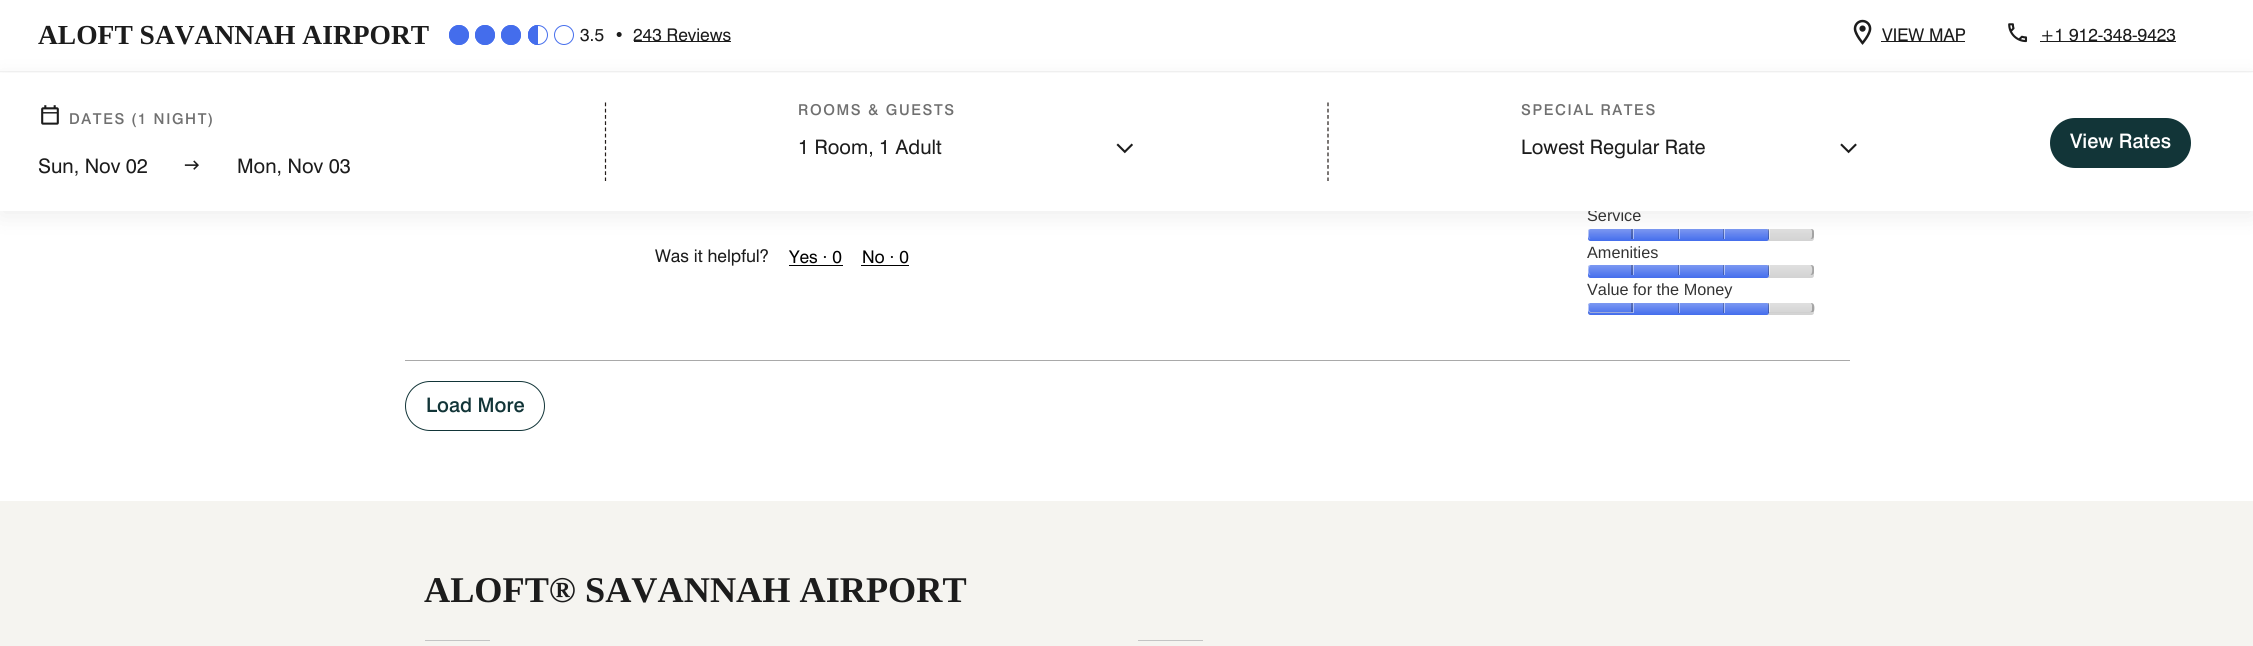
import math
import cairocffi as cairo

surface = cairo.ImageSurface(cairo.FORMAT_RGB24, 2253, 646)
ctx = cairo.Context(surface)
options = cairo.FontOptions()
options.set_hint_metrics(cairo.HINT_METRICS_OFF)
options.set_hint_style(cairo.HINT_STYLE_NONE)
ctx.set_font_options(options)
ctx.set_miter_limit(4)


def rgb(r, g, b):
    ctx.set_source_rgb(r / 255, g / 255, b / 255)


def face(family, size, italic, bold):
    ctx.select_font_face(family, cairo.FONT_SLANT_ITALIC if italic else cairo.FONT_SLANT_NORMAL, cairo.FONT_WEIGHT_BOLD if bold else cairo.FONT_WEIGHT_NORMAL)
    ctx.set_font_size(size)


def label(x, y, s):
    ctx.move_to(x, y)
    ctx.show_text(s)


def tracked(x, y, s, letter, word):
    ctx.move_to(x, y)
    for ch in s:
        ctx.show_text(ch)
        ctx.rel_move_to(letter + word * (ch == ' '), 0)


def rect(x, y, w, h):
    ctx.rectangle(x, y, w, h)
    ctx.fill()


def rrect(x, y, w, h, r):
    ctx.new_sub_path()
    for i, (u, v) in enumerate([(x + w - r, y + h - r), (x + r, y + h - r), (x + r, y + r), (x + w - r, y + r)]):
        ctx.arc(u, v, r, i * math.pi / 2, (i + 1) * math.pi / 2)
    ctx.close_path()


def soft_shadow(x, y, w, h, r, blur, alpha):
    ctx.push_group_with_content(cairo.CONTENT_ALPHA)
    ctx.set_operator(cairo.OPERATOR_SOURCE)
    for i in range(15, -16, -2):
        e = blur * i / 6
        if min(w, h) + 2 * e > 0:
            ctx.set_source_rgba(0, 0, 0, alpha * math.erfc((i - 1) / 8.5) / 2)
            rrect(x - e, y - e, w + 2 * e, h + 2 * e, max(0, min(r + e + blur * .6, min(w, h) / 2 + e)))
            ctx.fill()
    ctx.mask(ctx.pop_group())


def image(path, x, y, w, h):
    ctx.save()
    ctx.set_source_surface(cairo.ImageSurface.create_from_png(path), x, y)
    ctx.rectangle(x, y, w, h)
    ctx.fill()
    ctx.restore()


rgb(255, 255, 255)
ctx.paint()
rgb(244, 244, 244)
rect(0, 71, 2253, 1)
face('Liberation Serif', 27.5, 0, 1)
rgb(28, 28, 28)
label(38, 44, 'ALOFT SAVANNAH AIRPORT')
ctx.new_path()
ctx.arc(459, 35, 9.5, 0, 2 * math.pi)
rgb(68, 109, 236)
ctx.set_line_width(1)
ctx.stroke()
ctx.arc(459, 35, 9.5, 0, 2 * math.pi)
ctx.fill_preserve()
ctx.stroke()
ctx.arc(485, 35, 9.5, 0, 2 * math.pi)
ctx.stroke()
ctx.arc(485, 35, 9.5, 0, 2 * math.pi)
ctx.fill_preserve()
ctx.stroke()
ctx.arc(511, 35, 9.5, 0, 2 * math.pi)
ctx.stroke()
ctx.arc(511, 35, 9.5, 0, 2 * math.pi)
ctx.fill_preserve()
ctx.stroke()
ctx.arc(538, 35, 9.5, 0, 2 * math.pi)
ctx.stroke()
ctx.new_path()
ctx.move_to(538, 25)
ctx.line_to(538, 45)
ctx.curve_to(532.5, 45, 528, 40.5, 528, 35)
ctx.curve_to(528, 29.5, 532.5, 25, 538, 25)
ctx.close_path()
ctx.fill()
ctx.save()
ctx.rectangle(528, 25, 10, 20)
ctx.clip()
ctx.arc(538, 35, 9.5, 0, 2 * math.pi)
ctx.stroke()
ctx.restore()
ctx.arc(564, 35, 9.5, 0, 2 * math.pi)
ctx.stroke()
face('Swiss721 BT', 17.5, 0, 0)
rgb(28, 28, 28)
label(580, 41, '3.5')
label(614, 41, '•')
rect(634, 41, 97, 1)
label(633, 41, '243 Reviews')
image('image0.png', 1853, 19, 19, 26)
label(1882, 41, 'VIEW MAP')
rect(1881, 41, 84, 1)
image('image1.png', 2008, 23, 20, 20)
rect(2040, 41, 136, 1)
label(2040, 41, '+1 912-348-9423')
rgb(210, 210, 210)
rrect(1588, 229, 226, 12, 2.5)
ctx.fill()
gradient = cairo.LinearGradient(1701, 229, 1701, 241)
gradient.add_color_stop_rgba(0, 1, 1, 1, 0.3)
gradient.add_color_stop_rgba(1, 1, 1, 1, 0)
ctx.set_source(gradient)
rrect(1588, 229, 226, 12, 2.5)
ctx.fill()
rgb(68, 109, 236)
rrect(1588, 229, 181, 12, 2.5)
ctx.fill()
gradient = cairo.LinearGradient(1678, 229, 1678, 241)
gradient.add_color_stop_rgba(0, 1, 1, 1, 0.3)
gradient.add_color_stop_rgba(1, 1, 1, 1, 0)
ctx.set_source(gradient)
rrect(1588, 229, 181, 12, 2.5)
ctx.fill()
ctx.set_source_rgba(0, 0, 0, 0.25)
rect(1631, 229, 2, 10)
ctx.set_source_rgba(1, 1, 1, 0.5)
ctx.new_path()
ctx.move_to(1590.5, 229)
ctx.curve_to(1587.5, 229, 1588, 232, 1588, 234)
ctx.curve_to(1588, 236.5, 1588, 239, 1591, 239)
ctx.curve_to(1588.5, 239, 1589, 235, 1589, 233.5)
ctx.curve_to(1589, 232, 1588.5, 229, 1591, 229)
ctx.close_path()
ctx.fill()
ctx.set_source_rgba(0, 0, 0, 0.25)
rect(1678, 229, 1, 10)
ctx.set_source_rgba(1, 1, 1, 0.5)
rect(1633, 229, 1, 10)
ctx.set_source_rgba(0, 0, 0, 0.25)
rect(1723, 229, 1, 10)
ctx.set_source_rgba(1, 1, 1, 0.5)
rect(1679, 229, 1, 10)
ctx.set_source_rgba(0, 0, 0, 0.25)
rect(1768, 229, 1, 10)
ctx.set_source_rgba(1, 1, 1, 0.5)
rect(1724, 229, 1, 10)
ctx.set_source_rgba(0, 0, 0, 0.25)
ctx.new_path()
ctx.move_to(1810, 239)
ctx.curve_to(1814, 239, 1814, 237.5, 1814, 234)
ctx.curve_to(1814, 230.5, 1814, 229, 1810, 229)
ctx.curve_to(1812.5, 229, 1812, 232, 1812, 233.5)
ctx.curve_to(1812, 235, 1812.5, 239, 1810, 239)
ctx.close_path()
ctx.fill()
ctx.set_source_rgba(1, 1, 1, 0.5)
rect(1769, 229, 1, 10)
rgb(0, 0, 0)
soft_shadow(0, 78, 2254, 138, 0, 12.5, 0.07)
face('Liberation Sans', 16.25, 0, 0)
rgb(51, 51, 51)
label(1587, 221, 'Service')
rgb(255, 255, 255)
rect(0, 73, 2253, 138)
image('image2.png', 41, 105, 18, 20)
face('Swiss721 BT Medium', 15, 0, 0)
rgb(112, 112, 112)
tracked(69, 124, 'DATES', 1.6, 0)
tracked(131, 124, '(1 NIGHT)', 1.6, 0)
face('Swiss721 BT', 20, 0, 0)
rgb(28, 28, 28)
label(38, 173, 'Sun, Nov 02')
image('image3.png', 184, 160, 15, 10)
label(237, 173, 'Mon, Nov 03')
ctx.new_path()
ctx.move_to(605.5, 102.5)
ctx.line_to(605.5, 181)
rgb(35, 28, 25)
ctx.set_line_width(1.2)
ctx.set_dash([3.75, 2.5])
ctx.stroke()
face('Swiss721 BT Medium', 15, 0, 0)
rgb(112, 112, 112)
tracked(798, 115, 'ROOMS & GUESTS', 1.6, 0)
face('Swiss721 BT', 20, 0, 0)
rgb(28, 28, 28)
label(798, 154, '1 Room, 1 Adult')
image('image4.png', 1116, 143, 17, 11)
ctx.new_path()
ctx.move_to(1328, 102.5)
ctx.line_to(1328, 181)
rgb(35, 28, 25)
ctx.stroke()
face('Swiss721 BT Medium', 15, 0, 0)
rgb(112, 112, 112)
tracked(1521, 115, 'SPECIAL RATES', 1.6, 0)
face('Swiss721 BT', 20, 0, 0)
rgb(28, 28, 28)
label(1521, 154, 'Lowest Regular Rate')
image('image5.png', 1840, 143, 17, 11)
rgb(18, 53, 56)
rrect(2050, 118, 141, 50, 25)
ctx.fill()
face('Swiss721 BT Medium', 20, 0, 0)
rgb(255, 255, 255)
label(2070, 148, 'View Rates')
rgb(169, 169, 169)
rect(405, 360, 1445, 1)
face('Swiss721 BT', 17.5, 0, 0)
rgb(28, 28, 28)
label(655, 262, 'Was it helpful?')
rgb(0, 0, 0)
label(789, 263, 'Yes · 0')
rect(789, 265, 54, 1)
label(862, 263, 'No · 0')
rect(861, 265, 48, 1)
face('Liberation Sans', 16.25, 0, 0)
rgb(51, 51, 51)
label(1587, 258, 'Amenities')
rgb(210, 210, 210)
rrect(1588, 265, 226, 13, 2.5)
ctx.fill()
gradient = cairo.LinearGradient(1701, 265, 1701, 278)
gradient.add_color_stop_rgba(0, 1, 1, 1, 0.3)
gradient.add_color_stop_rgba(1, 1, 1, 1, 0)
ctx.set_source(gradient)
rrect(1588, 265, 226, 13, 2.5)
ctx.fill()
rgb(68, 109, 236)
rrect(1588, 265, 181, 13, 2.5)
ctx.fill()
gradient = cairo.LinearGradient(1678, 265, 1678, 278)
gradient.add_color_stop_rgba(0, 1, 1, 1, 0.3)
gradient.add_color_stop_rgba(1, 1, 1, 1, 0)
ctx.set_source(gradient)
rrect(1588, 265, 181, 13, 2.5)
ctx.fill()
ctx.set_source_rgba(0, 0, 0, 0.25)
rect(1631, 265, 2, 10)
ctx.set_source_rgba(1, 1, 1, 0.5)
ctx.new_path()
ctx.move_to(1590.5, 265)
ctx.curve_to(1587.5, 265, 1588, 268, 1588, 270)
ctx.curve_to(1588, 272.5, 1588, 275, 1591, 275)
ctx.curve_to(1588, 275, 1588, 265, 1591, 265)
ctx.close_path()
ctx.fill()
ctx.set_source_rgba(0, 0, 0, 0.25)
rect(1678, 265, 1, 10)
ctx.set_source_rgba(1, 1, 1, 0.5)
rect(1633, 265, 1, 10)
ctx.set_source_rgba(0, 0, 0, 0.25)
rect(1723, 265, 1, 10)
ctx.set_source_rgba(1, 1, 1, 0.5)
rect(1679, 265, 1, 10)
ctx.set_source_rgba(0, 0, 0, 0.25)
rect(1768, 265, 1, 10)
ctx.set_source_rgba(1, 1, 1, 0.5)
rect(1724, 265, 1, 10)
ctx.set_source_rgba(0, 0, 0, 0.25)
ctx.new_path()
ctx.move_to(1810, 275)
ctx.curve_to(1814, 275, 1814, 273.5, 1814, 270)
ctx.curve_to(1814, 266.5, 1814, 265, 1810, 265)
ctx.curve_to(1813, 265, 1813, 275, 1810, 275)
ctx.close_path()
ctx.fill()
ctx.set_source_rgba(1, 1, 1, 0.5)
rect(1769, 265, 1, 10)
rgb(51, 51, 51)
label(1587, 295, 'Value for the Money')
rgb(210, 210, 210)
rrect(1588, 303, 226, 12, 2.5)
ctx.fill()
gradient = cairo.LinearGradient(1701, 303, 1701, 315)
gradient.add_color_stop_rgba(0, 1, 1, 1, 0.3)
gradient.add_color_stop_rgba(1, 1, 1, 1, 0)
ctx.set_source(gradient)
rrect(1588, 303, 226, 12, 2.5)
ctx.fill()
rgb(68, 109, 236)
rrect(1588, 303, 181, 12, 2.5)
ctx.fill()
gradient = cairo.LinearGradient(1678, 303, 1678, 315)
gradient.add_color_stop_rgba(0, 1, 1, 1, 0.3)
gradient.add_color_stop_rgba(1, 1, 1, 1, 0)
ctx.set_source(gradient)
rrect(1588, 303, 181, 12, 2.5)
ctx.fill()
ctx.set_source_rgba(0, 0, 0, 0.25)
ctx.new_path()
ctx.move_to(1588, 312)
ctx.line_to(1590, 313)
ctx.line_to(1633, 313)
ctx.line_to(1633, 303)
ctx.line_to(1631, 303)
ctx.line_to(1631, 312)
ctx.close_path()
ctx.fill()
ctx.set_source_rgba(1, 1, 1, 0.5)
ctx.new_path()
ctx.move_to(1590, 303)
ctx.curve_to(1587, 304, 1588, 310, 1588, 311)
ctx.line_to(1590, 313)
ctx.line_to(1633, 313)
ctx.line_to(1633, 312)
ctx.line_to(1591, 312)
ctx.curve_to(1590, 312, 1589, 311, 1589, 310)
ctx.line_to(1589, 305)
ctx.close_path()
ctx.fill()
ctx.set_source_rgba(0, 0, 0, 0.25)
rect(1678, 303, 1, 10)
ctx.set_source_rgba(1, 1, 1, 0.5)
rect(1633, 303, 1, 10)
ctx.set_source_rgba(0, 0, 0, 0.25)
rect(1723, 303, 1, 10)
ctx.set_source_rgba(1, 1, 1, 0.5)
rect(1679, 303, 1, 10)
ctx.set_source_rgba(0, 0, 0, 0.25)
rect(1768, 303, 1, 10)
ctx.set_source_rgba(1, 1, 1, 0.5)
rect(1724, 303, 1, 10)
ctx.set_source_rgba(0, 0, 0, 0.25)
ctx.new_path()
ctx.move_to(1769, 312)
ctx.line_to(1769, 313)
ctx.line_to(1812, 313)
ctx.line_to(1814, 311)
ctx.curve_to(1815, 309, 1815, 303, 1811, 303)
ctx.line_to(1812, 305)
ctx.line_to(1812, 310)
ctx.curve_to(1812, 311, 1811, 312, 1810, 312)
ctx.close_path()
ctx.fill()
ctx.set_source_rgba(1, 1, 1, 0.5)
ctx.new_path()
ctx.move_to(1769, 303)
ctx.line_to(1769, 313)
ctx.line_to(1812, 313)
ctx.line_to(1814, 312)
ctx.line_to(1770, 312)
ctx.line_to(1770, 303)
ctx.close_path()
ctx.fill()
rrect(405.5, 381.5, 139, 49, 24.5)
rgb(18, 53, 56)
ctx.set_line_width(1)
ctx.set_dash([])
ctx.stroke()
face('Swiss721 BT Medium', 20, 0, 0)
label(426, 412, 'Load More')
rgb(245, 244, 240)
rect(0, 501, 2253, 145)
face('Liberation Serif', 36.25, 0, 1)
rgb(28, 28, 28)
label(424, 602, 'ALOFT® SAVANNAH AIRPORT')
rgb(196, 196, 196)
rect(425, 640, 65, 1)
rect(1138, 640, 65, 1)
surface.write_to_png('render.png')
